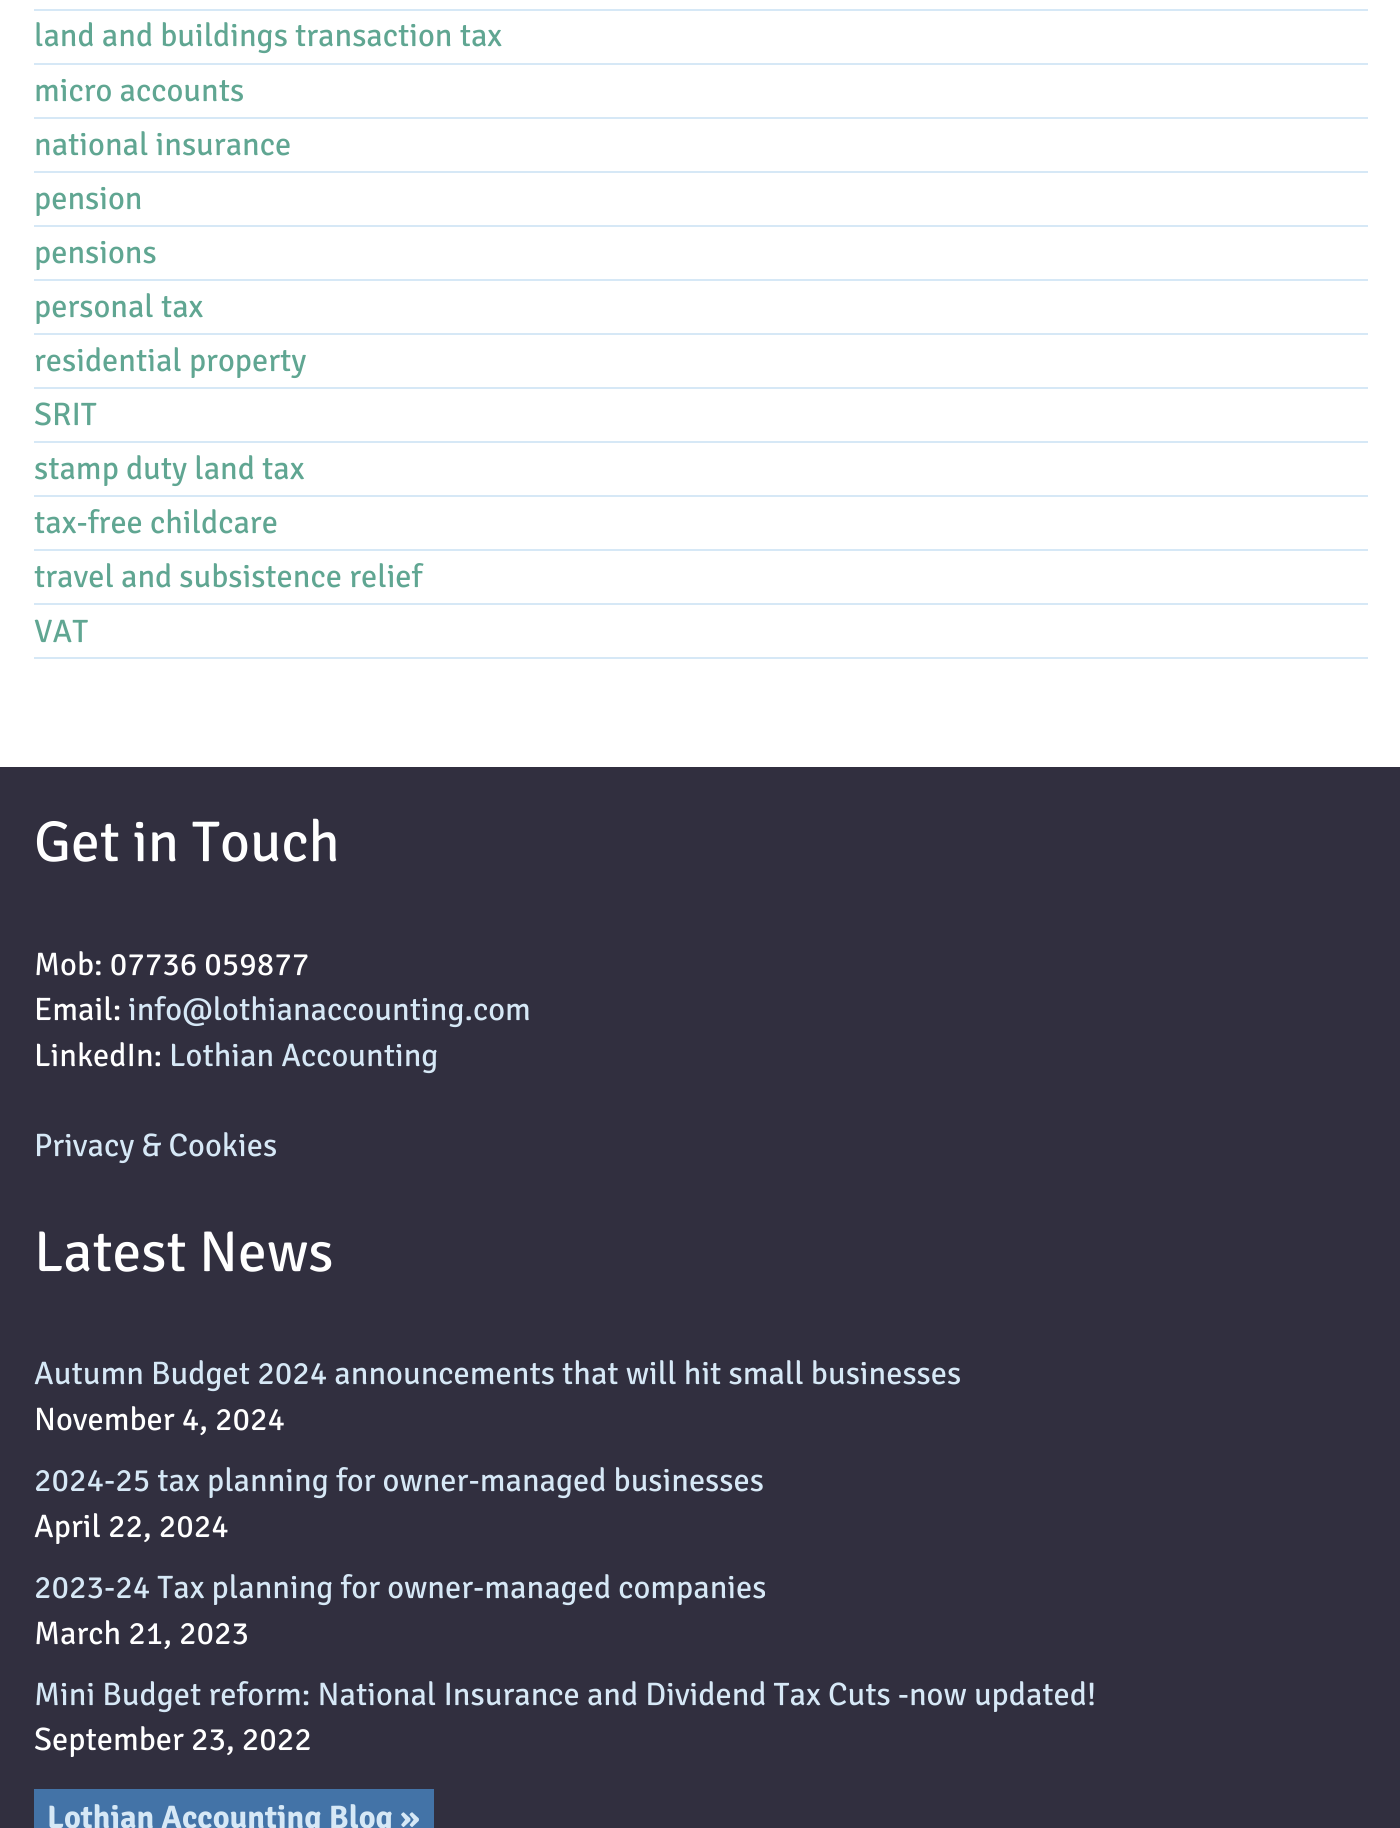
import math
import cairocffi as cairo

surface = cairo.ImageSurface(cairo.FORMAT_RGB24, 1400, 1828)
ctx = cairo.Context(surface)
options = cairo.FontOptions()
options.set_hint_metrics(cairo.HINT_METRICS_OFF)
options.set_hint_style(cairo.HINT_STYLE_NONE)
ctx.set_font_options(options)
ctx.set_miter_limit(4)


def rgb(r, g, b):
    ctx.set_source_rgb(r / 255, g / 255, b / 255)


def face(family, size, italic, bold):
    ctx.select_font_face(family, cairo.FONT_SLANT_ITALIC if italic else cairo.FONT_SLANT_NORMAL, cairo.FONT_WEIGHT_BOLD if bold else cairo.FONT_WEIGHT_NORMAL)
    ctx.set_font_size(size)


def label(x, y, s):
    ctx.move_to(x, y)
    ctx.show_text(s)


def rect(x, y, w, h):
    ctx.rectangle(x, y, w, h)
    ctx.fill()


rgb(255, 255, 255)
ctx.paint()
rgb(214, 232, 246)
rect(34, 9, 1334, 2)
rect(34, 63, 1334, 2)
face('Signika Negative', 32.4, 0, 0)
rgb(96, 166, 146)
label(34, 46, 'land and buildings transaction tax')
rgb(214, 232, 246)
rect(34, 117, 1334, 2)
rgb(96, 166, 146)
label(34, 101, 'micro accounts')
rgb(214, 232, 246)
rect(34, 171, 1334, 2)
rgb(96, 166, 146)
label(34, 155, 'national insurance')
rgb(214, 232, 246)
rect(34, 225, 1334, 2)
rgb(96, 166, 146)
label(34, 209, 'pension')
rgb(214, 232, 246)
rect(34, 279, 1334, 2)
rgb(96, 166, 146)
label(34, 263, 'pensions')
rgb(214, 232, 246)
rect(34, 333, 1334, 2)
rgb(96, 166, 146)
label(34, 317, 'personal tax')
rgb(214, 232, 246)
rect(34, 387, 1334, 2)
rgb(96, 166, 146)
label(34, 371, 'residential property')
rgb(214, 232, 246)
rect(34, 441, 1334, 2)
rgb(96, 166, 146)
label(34, 425, 'SRIT')
rgb(214, 232, 246)
rect(34, 495, 1334, 2)
rgb(96, 166, 146)
label(34, 479, 'stamp duty land tax')
rgb(214, 232, 246)
rect(34, 549, 1334, 2)
rgb(96, 166, 146)
label(34, 533, 'tax-free childcare')
rgb(214, 232, 246)
rect(34, 603, 1334, 2)
rgb(96, 166, 146)
label(34, 587, 'travel and subsistence relief')
rgb(214, 232, 246)
rect(34, 657, 1334, 2)
rgb(96, 166, 146)
label(34, 642, 'VAT')
rgb(49, 47, 63)
rect(0, 767, 1400, 1061)
face('Signika Negative', 57.5, 0, 0)
rgb(255, 255, 255)
label(34, 861, 'Get in Touch')
face('Signika Negative', 32.4, 0, 0)
label(34, 975, 'Mob: 07736 059877')
label(34, 1020, 'Email:')
rgb(214, 232, 246)
label(128, 1020, 'info@lothianaccounting.com')
rgb(255, 255, 255)
label(34, 1066, 'LinkedIn:')
rgb(214, 232, 246)
label(169, 1066, 'Lothian Accounting')
label(34, 1156, 'Privacy & Cookies')
face('Signika Negative', 57.5, 0, 0)
rgb(255, 255, 255)
label(34, 1271, 'Latest News')
face('Signika Negative', 32.4, 0, 0)
rgb(214, 232, 246)
label(34, 1384, 'Autumn Budget 2024 announcements that will hit small businesses')
rgb(255, 255, 255)
label(34, 1430, 'November 4, 2024')
rgb(214, 232, 246)
label(34, 1491, '2024-25 tax planning for owner-managed businesses')
rgb(255, 255, 255)
label(34, 1537, 'April 22, 2024')
rgb(214, 232, 246)
label(34, 1598, '2023-24 Tax planning for owner-managed companies')
rgb(255, 255, 255)
label(34, 1644, 'March 21, 2023')
rgb(214, 232, 246)
label(34, 1705, 'Mini Budget reform: National Insurance and Dividend Tax Cuts -now updated!')
rgb(255, 255, 255)
label(34, 1750, 'September 23, 2022')
rgb(67, 115, 167)
rect(34, 1789, 400, 39)
face('Signika Negative', 32.4, 0, 1)
rgb(214, 232, 246)
label(47, 1828, 'Lothian Accounting Blog »')
surface.write_to_png('render.png')
